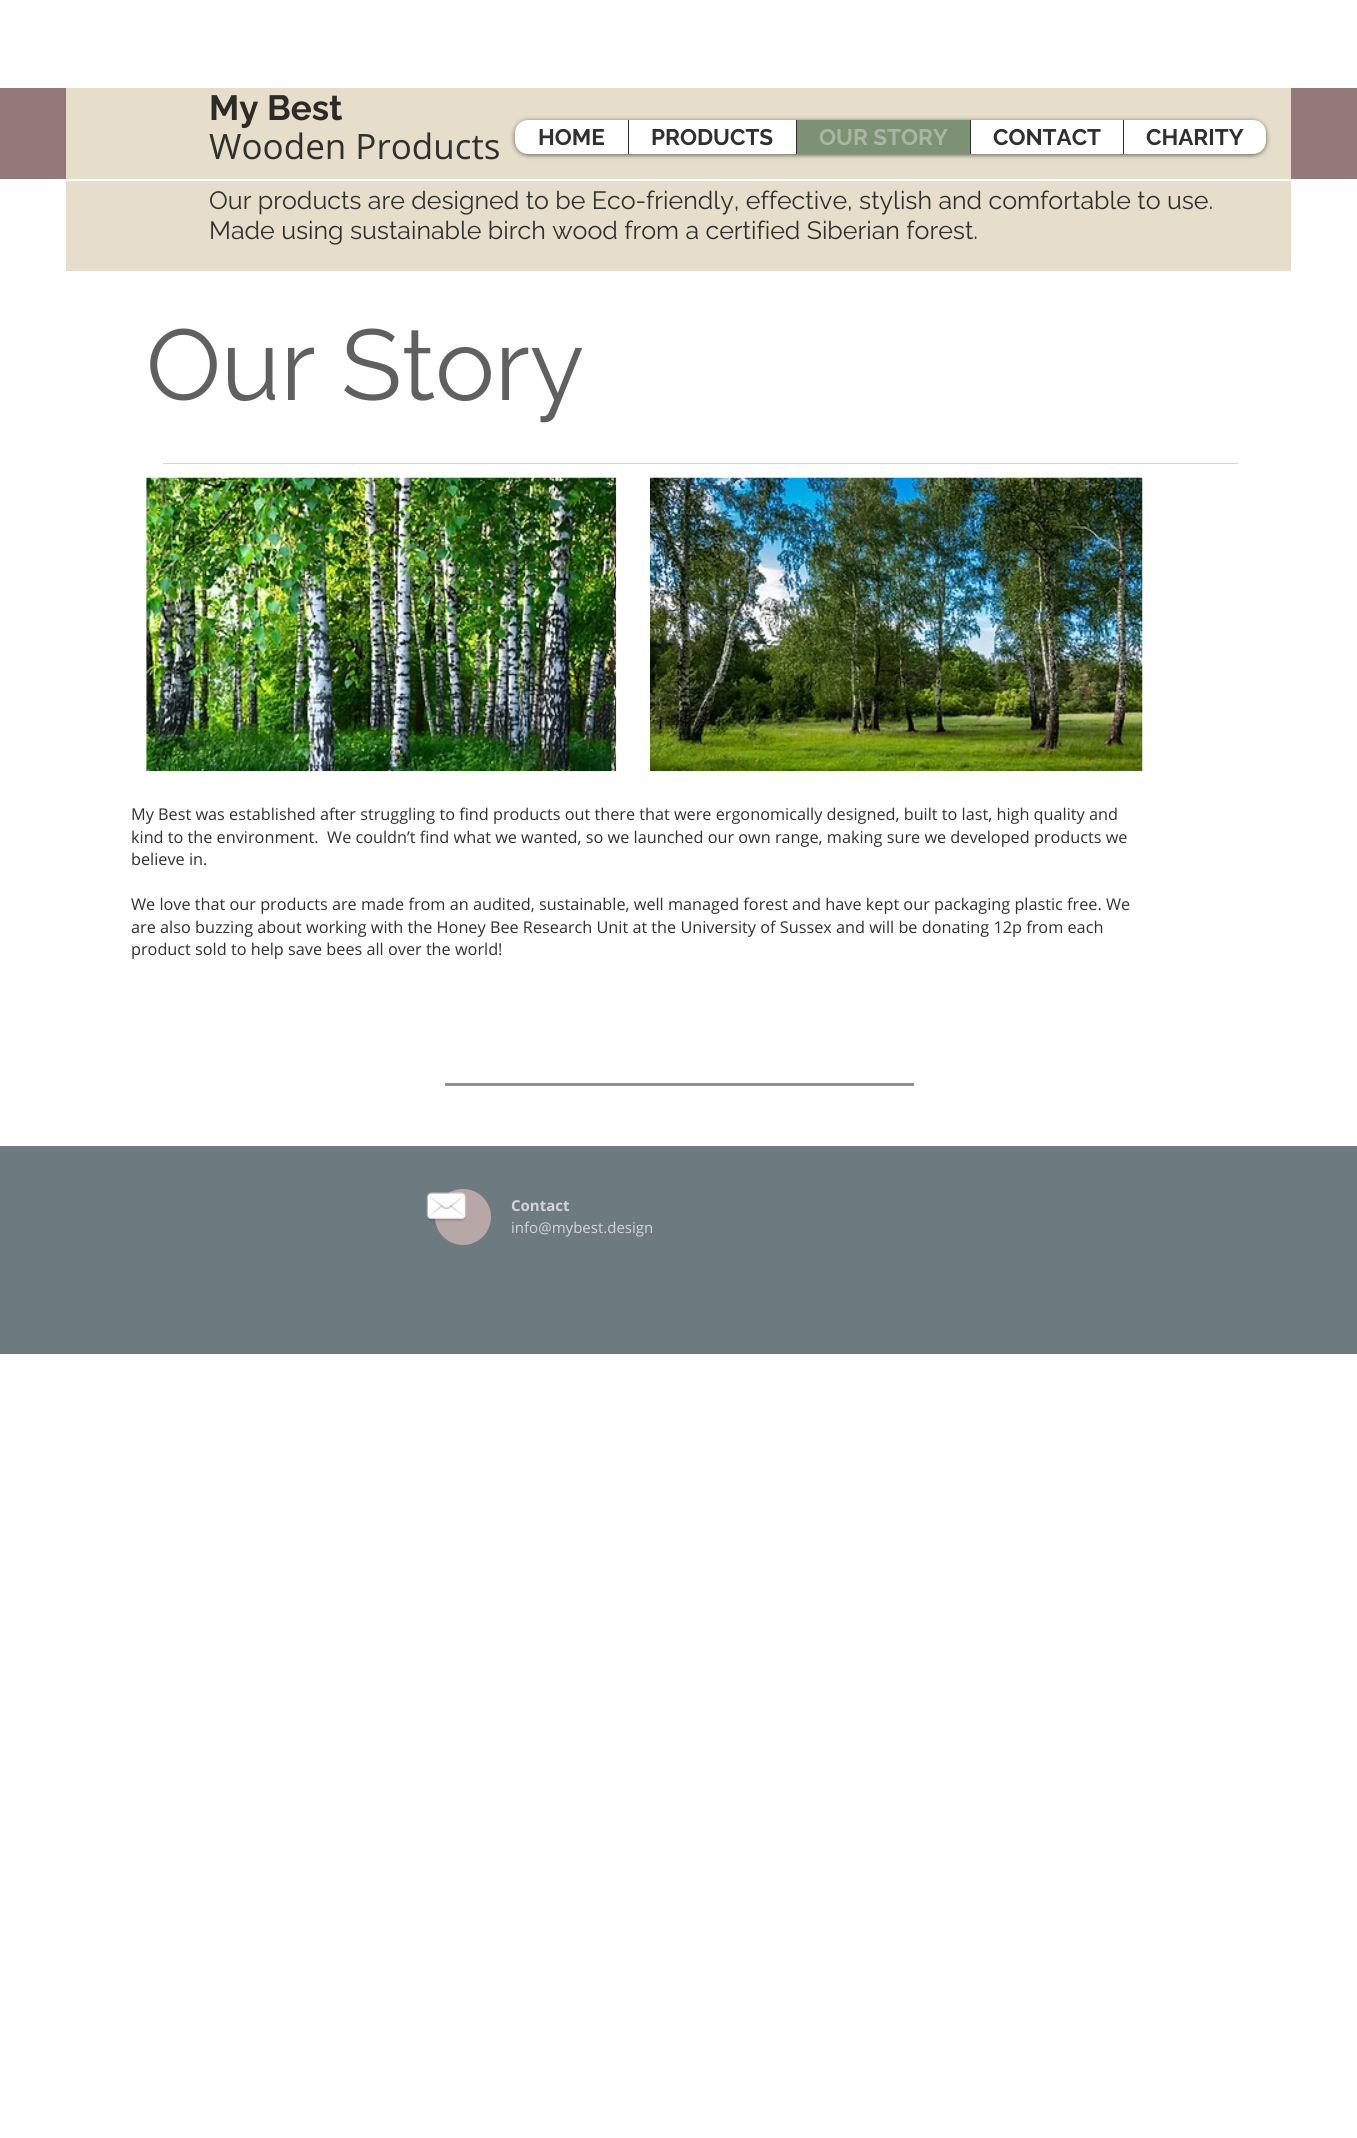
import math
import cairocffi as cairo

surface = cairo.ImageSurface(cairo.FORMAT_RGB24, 1357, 2138)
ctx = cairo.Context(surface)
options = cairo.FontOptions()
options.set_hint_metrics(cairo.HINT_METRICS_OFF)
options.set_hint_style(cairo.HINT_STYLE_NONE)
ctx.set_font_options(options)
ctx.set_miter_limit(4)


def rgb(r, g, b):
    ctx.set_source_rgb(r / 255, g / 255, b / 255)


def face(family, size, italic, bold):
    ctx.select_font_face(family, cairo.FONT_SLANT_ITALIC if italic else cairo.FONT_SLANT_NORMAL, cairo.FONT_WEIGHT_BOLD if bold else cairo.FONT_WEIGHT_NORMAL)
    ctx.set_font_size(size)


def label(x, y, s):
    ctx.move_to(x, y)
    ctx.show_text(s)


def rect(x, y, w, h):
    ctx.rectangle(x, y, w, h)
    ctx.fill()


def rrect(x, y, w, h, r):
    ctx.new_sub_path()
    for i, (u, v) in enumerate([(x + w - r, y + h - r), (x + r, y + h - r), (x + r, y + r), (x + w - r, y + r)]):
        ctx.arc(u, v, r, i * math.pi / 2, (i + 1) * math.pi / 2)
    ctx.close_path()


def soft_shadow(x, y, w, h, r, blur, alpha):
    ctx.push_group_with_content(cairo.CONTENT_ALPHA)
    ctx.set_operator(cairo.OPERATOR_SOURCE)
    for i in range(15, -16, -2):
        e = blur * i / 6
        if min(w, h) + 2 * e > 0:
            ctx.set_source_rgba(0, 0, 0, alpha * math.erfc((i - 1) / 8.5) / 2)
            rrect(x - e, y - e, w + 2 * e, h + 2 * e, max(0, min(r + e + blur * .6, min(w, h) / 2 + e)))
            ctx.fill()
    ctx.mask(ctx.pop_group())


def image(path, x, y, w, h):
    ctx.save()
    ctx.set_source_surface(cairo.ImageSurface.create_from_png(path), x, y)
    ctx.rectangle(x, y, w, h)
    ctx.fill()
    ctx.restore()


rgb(255, 255, 255)
ctx.paint()
rgb(147, 121, 122)
rect(0, 88, 1357, 91)
rgb(230, 222, 202)
rect(66, 88, 1225, 91)
face('Raleway', 35, 0, 1)
rgb(46, 43, 38)
label(209, 120, 'My Best')
face('Open Sans', 35, 0, 0)
rgb(48, 48, 48)
label(209, 159, 'Wooden Products')
rgb(0, 0, 0)
soft_shadow(515, 121, 751, 34, 13, 2.5, 0.6)
rgb(255, 255, 255)
rrect(515, 120, 751, 34, 13)
ctx.fill()
face('Raleway', 22.5, 0, 1)
rgb(48, 48, 48)
label(538, 145, 'HOME')
rect(628, 120, 1, 34)
label(651, 145, 'PRODUCTS')
rgb(125, 145, 116)
rect(797, 120, 173, 34)
rgb(48, 48, 48)
rect(796, 120, 1, 34)
rgb(169, 182, 164)
label(819, 145, 'OUR STORY')
rgb(48, 48, 48)
rect(970, 120, 1, 34)
label(993, 145, 'CONTACT')
rect(1123, 120, 1, 34)
label(1146, 145, 'CHARITY')
rgb(230, 222, 202)
rect(66, 181, 1225, 90)
face('Raleway', 25, 0, 0)
rgb(48, 48, 48)
label(209, 209, 'Our products are designed to be Eco-friendly, effective, stylish and comfortable to use.')
label(209, 239, 'Made using sustainable birch wood from a certified Siberian forest.')
face('Raleway', 100, 0, 0)
rgb(96, 96, 96)
label(146, 400, 'Our Story')
rgb(220, 212, 200)
rect(163, 463, 1075, 1)
image('image0.png', 146, 477, 471, 295)
image('image1.png', 650, 477, 493, 295)
face('Open Sans', 16.25, 0, 0)
rgb(48, 48, 48)
label(131, 820, 'My Best was established after struggling to find products out there that were ergonomically designed, built to last, high quality and')
label(131, 843, 'kind to the environment.  We couldn’t find what we wanted, so we launched our own range, making sure we developed products we')
label(131, 865, 'believe in.')
label(131, 910, 'We love that our products are made from an audited, sustainable, well managed forest and have kept our packaging plastic free. We')
label(131, 933, 'are also buzzing about working with the Honey Bee Research Unit at the University of Sussex and will be donating 12p from each')
label(131, 955, 'product sold to help save bees all over the world!')
rgb(144, 144, 144)
rect(445, 1083, 469, 3)
rgb(109, 123, 129)
rect(0, 1146, 1357, 208)
rgb(183, 167, 167)
ctx.new_path()
ctx.arc(463, 1217, 28, 0, 2 * math.pi)
ctx.fill()
image('image2.png', 426, 1192, 41, 30)
face('Open Sans', 15, 0, 1)
rgb(212, 212, 212)
label(511, 1211, 'Contact')
face('Open Sans', 15, 0, 0)
label(511, 1233, 'info@mybest.design')
surface.write_to_png('render.png')
